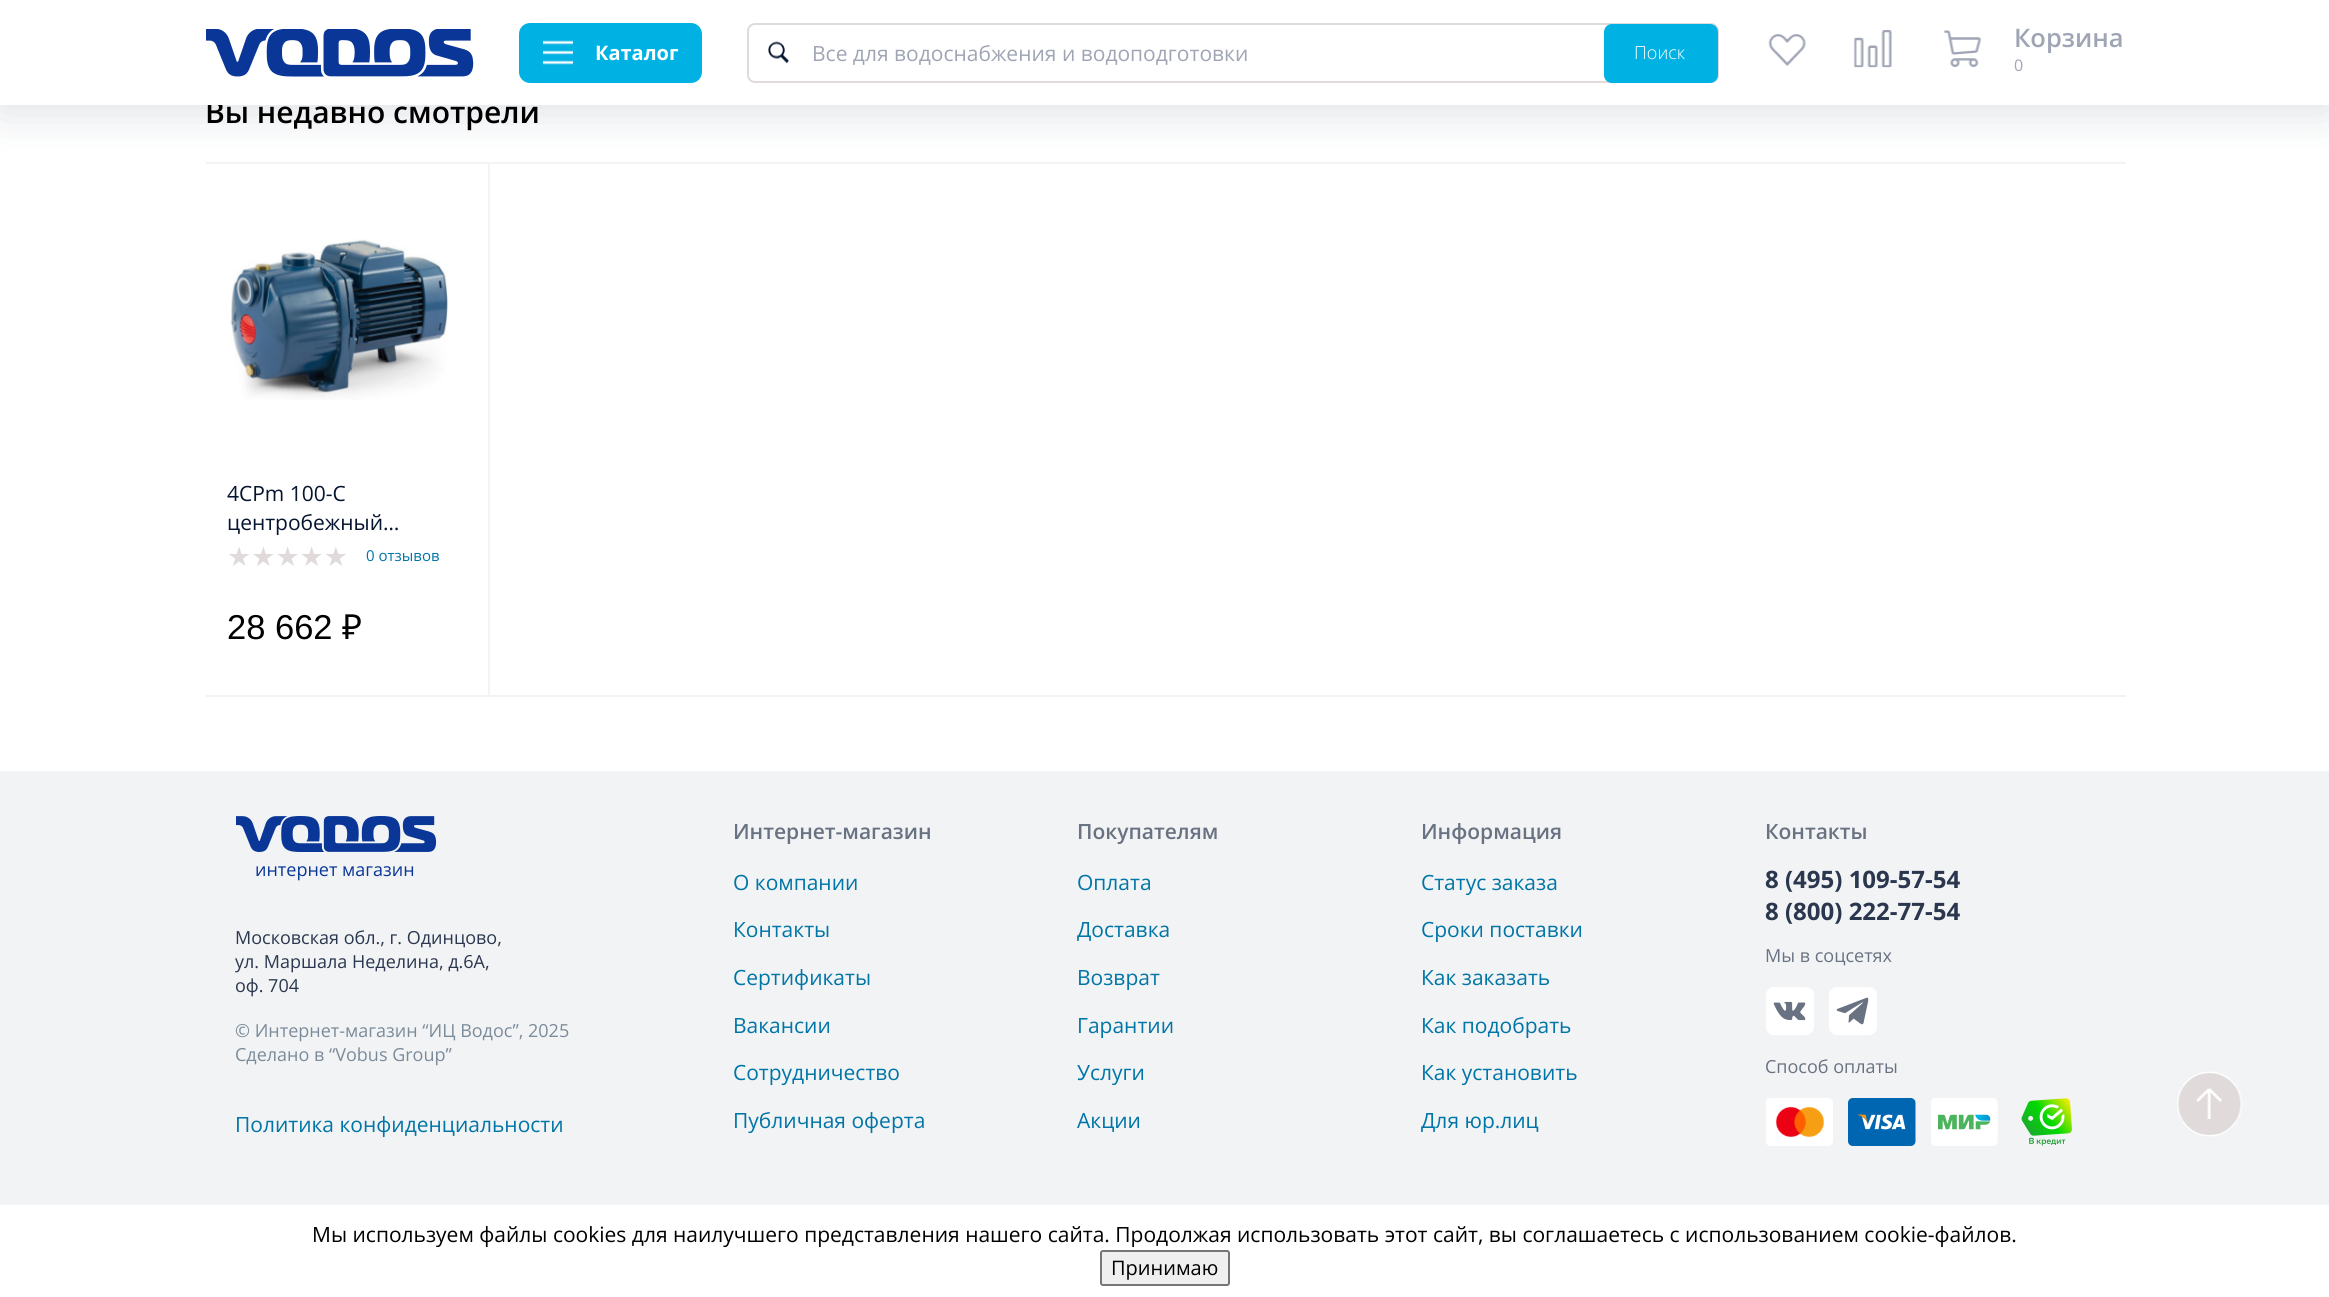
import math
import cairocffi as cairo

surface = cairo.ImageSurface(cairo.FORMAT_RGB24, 2329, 1297)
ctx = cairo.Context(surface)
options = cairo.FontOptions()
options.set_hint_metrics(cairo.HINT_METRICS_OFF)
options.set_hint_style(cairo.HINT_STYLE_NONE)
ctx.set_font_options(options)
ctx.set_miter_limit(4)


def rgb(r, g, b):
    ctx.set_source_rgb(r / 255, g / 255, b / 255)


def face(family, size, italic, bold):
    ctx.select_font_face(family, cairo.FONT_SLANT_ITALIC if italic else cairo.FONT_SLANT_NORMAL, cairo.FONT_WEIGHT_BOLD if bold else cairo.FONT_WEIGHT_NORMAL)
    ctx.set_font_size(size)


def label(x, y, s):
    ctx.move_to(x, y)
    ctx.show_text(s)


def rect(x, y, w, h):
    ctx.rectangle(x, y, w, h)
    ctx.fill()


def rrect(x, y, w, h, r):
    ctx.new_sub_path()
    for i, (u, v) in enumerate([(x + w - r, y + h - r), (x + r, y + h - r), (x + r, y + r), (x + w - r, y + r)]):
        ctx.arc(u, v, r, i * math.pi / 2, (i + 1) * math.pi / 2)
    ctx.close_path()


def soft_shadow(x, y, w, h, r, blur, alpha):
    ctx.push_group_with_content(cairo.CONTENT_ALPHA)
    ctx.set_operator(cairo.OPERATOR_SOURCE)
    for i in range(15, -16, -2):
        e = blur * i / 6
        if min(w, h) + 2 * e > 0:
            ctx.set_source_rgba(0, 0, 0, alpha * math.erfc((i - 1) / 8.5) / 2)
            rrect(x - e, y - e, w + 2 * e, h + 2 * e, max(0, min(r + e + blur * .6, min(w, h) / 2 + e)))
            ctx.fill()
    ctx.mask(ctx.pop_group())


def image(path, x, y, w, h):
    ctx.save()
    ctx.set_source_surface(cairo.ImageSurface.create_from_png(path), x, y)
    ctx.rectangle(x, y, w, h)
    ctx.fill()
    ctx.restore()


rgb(255, 255, 255)
ctx.paint()
rgb(242, 243, 244)
rect(206, 162, 1920, 2)
rect(206, 695, 1920, 2)
rect(488, 164, 2, 532)
rgb(42, 55, 78)
soft_shadow(0, 8, 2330, 105, 0, 22.5, 0.15)
face('Open Sans SemiBold', 30, 0, 0)
rgb(0, 0, 0)
label(205, 123, 'Вы недавно смотрели')
rgb(255, 255, 255)
rect(0, 0, 2329, 105)
image('image0.png', 206, 29, 268, 48)
rgb(0, 178, 227)
rrect(520, 24, 181, 58, 10)
ctx.fill_preserve()
ctx.stroke()
image('image1.png', 543, 40, 30, 25)
face('Open Sans', 20, 0, 1)
rgb(255, 255, 255)
label(595, 60, 'Каталог')
rrect(748, 24, 970, 58, 7)
rgb(224, 218, 219)
ctx.stroke()
image('image2.png', 768, 41, 21, 23)
face('Open Sans', 21, 0, 0)
rgb(159, 165, 180)
label(812, 61, 'Все для водоснабжения и водоподготовки')
rgb(0, 178, 227)
rrect(1604, 24, 114, 59, 8)
ctx.fill()
face('Open Sans Light', 18, 0, 0)
rgb(255, 255, 255)
label(1634, 59, 'Поиск')
image('image3.png', 1768, 34, 38, 32)
image('image4.png', 1853, 30, 39, 38)
image('image5.png', 1943, 30, 39, 37)
face('Open Sans SemiBold', 25.5, 0, 0)
rgb(159, 165, 180)
label(2014, 47, 'Корзина')
face('Open Sans', 16, 0, 0)
label(2014, 71, '0')
rgb(242, 243, 244)
rect(0, 771, 2329, 434)
image('image6.png', 2177, 1071, 65, 66)
image('image7.png', 230, 239, 219, 161)
face('Open Sans', 21, 0, 0)
rgb(5, 20, 47)
label(227, 501, '4CPm 100-C')
label(227, 530, 'центробежный…')
face('DejaVu Sans', 27, 0, 0)
rgb(224, 218, 219)
label(227, 566, '★★★★★')
face('Open Sans', 15, 0, 0)
rgb(0, 117, 167)
label(366, 561, '0 отзывов')
face('Liberation Sans', 34.5, 0, 0)
rgb(0, 0, 0)
label(227, 639, '28 662')
face('Noto Sans', 34.5, 0, 0)
label(342, 639, '₽')
image('image8.png', 236, 816, 201, 36)
face('Open Sans', 18, 0, 0)
rgb(9, 54, 151)
label(255, 876, 'интернет магазин')
rgb(42, 55, 78)
label(235, 944, 'Московская обл., г. Одинцово,')
label(235, 968, 'ул. Маршала Неделина, д.6А,')
label(235, 992, 'оф. 704')
rgb(123, 139, 154)
label(235, 1037, '© Интернет-магазин “ИЦ Водос”, 2025')
label(235, 1061, 'Сделано в “Vobus Group”')
face('Open Sans', 21, 0, 0)
rgb(0, 117, 167)
label(235, 1132, 'Политика конфиденциальности')
face('Open Sans SemiBold', 21, 0, 0)
rgb(105, 114, 130)
label(733, 839, 'Интернет-магазин')
face('Open Sans', 21, 0, 0)
rgb(0, 117, 167)
label(733, 890, 'О компании')
label(733, 937, 'Контакты')
label(733, 985, 'Сертификаты')
label(733, 1033, 'Вакансии')
label(733, 1080, 'Сотрудничество')
label(733, 1128, 'Публичная оферта')
face('Open Sans SemiBold', 21, 0, 0)
rgb(105, 114, 130)
label(1077, 839, 'Покупателям')
face('Open Sans', 21, 0, 0)
rgb(0, 117, 167)
label(1077, 890, 'Оплата')
label(1077, 937, 'Доставка')
label(1077, 985, 'Возврат')
label(1077, 1033, 'Гарантии')
label(1077, 1080, 'Услуги')
label(1077, 1128, 'Акции')
face('Open Sans SemiBold', 21, 0, 0)
rgb(105, 114, 130)
label(1421, 839, 'Информация')
face('Open Sans', 21, 0, 0)
rgb(0, 117, 167)
label(1421, 890, 'Статус заказа')
label(1421, 937, 'Сроки поставки')
label(1421, 985, 'Как заказать')
label(1421, 1033, 'Как подобрать')
label(1421, 1080, 'Как установить')
label(1421, 1128, 'Для юр.лиц')
face('Open Sans SemiBold', 21, 0, 0)
rgb(105, 114, 130)
label(1765, 839, 'Контакты')
face('Open Sans', 24, 0, 1)
rgb(42, 55, 78)
label(1765, 888, '8 (495) 109-57-54')
label(1765, 920, '8 (800) 222-77-54')
face('Open Sans', 18, 0, 0)
rgb(105, 114, 130)
label(1765, 962, 'Мы в соцсетях')
image('image9.png', 1766, 987, 48, 48)
image('image10.png', 1829, 987, 48, 48)
label(1765, 1073, 'Способ оплаты')
image('image11.png', 1766, 1098, 67, 48)
image('image12.png', 1848, 1098, 68, 48)
image('image13.png', 1931, 1098, 67, 48)
image('image14.png', 2021, 1098, 51, 48)
face('Open Sans', 21, 0, 0)
rgb(0, 0, 0)
label(312, 1242, 'Мы используем файлы cookies для наилучшего представления нашего сайта. Продолжая использовать этот сайт, вы соглашаетесь с использованием cookie-файлов.')
rgb(239, 239, 239)
rrect(1101, 1251, 128, 34, 2)
ctx.fill_preserve()
rgb(118, 118, 118)
ctx.stroke()
face('Open Sans', 20, 0, 0)
rgb(0, 0, 0)
label(1111, 1275, 'Принимаю')
surface.write_to_png('render.png')
